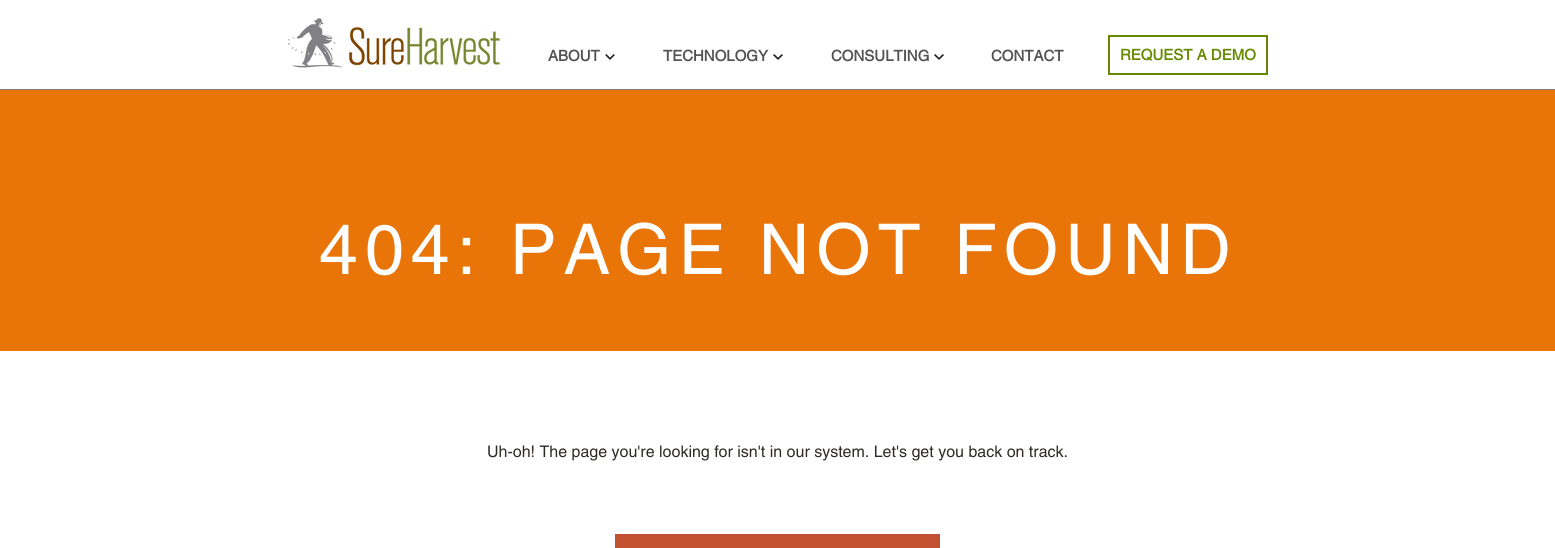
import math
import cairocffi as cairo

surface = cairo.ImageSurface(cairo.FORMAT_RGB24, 1555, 548)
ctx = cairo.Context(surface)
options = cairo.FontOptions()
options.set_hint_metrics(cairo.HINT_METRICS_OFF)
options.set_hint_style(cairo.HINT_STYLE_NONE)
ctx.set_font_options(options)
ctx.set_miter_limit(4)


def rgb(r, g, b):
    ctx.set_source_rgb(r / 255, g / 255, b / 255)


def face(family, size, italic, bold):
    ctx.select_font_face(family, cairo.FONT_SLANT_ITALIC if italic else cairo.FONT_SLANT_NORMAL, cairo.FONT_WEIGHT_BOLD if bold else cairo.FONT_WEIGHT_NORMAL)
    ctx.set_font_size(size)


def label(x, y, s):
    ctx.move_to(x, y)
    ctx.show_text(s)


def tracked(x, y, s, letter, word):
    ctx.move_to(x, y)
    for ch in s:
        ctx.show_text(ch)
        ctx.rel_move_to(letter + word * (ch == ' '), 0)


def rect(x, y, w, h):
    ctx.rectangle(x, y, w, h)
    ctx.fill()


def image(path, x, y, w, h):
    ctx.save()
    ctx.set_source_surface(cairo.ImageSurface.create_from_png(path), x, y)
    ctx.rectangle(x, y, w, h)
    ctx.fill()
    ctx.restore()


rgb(255, 255, 255)
ctx.paint()
image('image0.png', 288, 18, 212, 50)
face('helvetica', 15, 0, 1)
rgb(82, 82, 82)
label(548, 61, 'ABOUT')
label(663, 61, 'TECHNOLOGY')
label(831, 61, 'CONSULTING')
label(991, 61, 'CONTACT')
ctx.rectangle(1109, 36, 158, 38)
rgb(102, 136, 0)
ctx.stroke()
label(1120, 60, 'REQUEST A DEMO')
image('image1.png', 605, 54, 10, 6)
image('image2.png', 773, 54, 10, 6)
image('image2.png', 934, 54, 10, 6)
rgb(128, 128, 128)
rect(0, 89, 1555, 1)
rgb(233, 116, 7)
rect(0, 90, 1555, 261)
face('helvetica', 70, 0, 0)
rgb(255, 255, 255)
tracked(319, 274, '404: PAGE NOT FOUND', 7, 0)
face('helvetica', 16, 0, 0)
rgb(46, 43, 38)
label(487, 457, 'Uh-oh! The page you\'re looking for isn\'t in our system. Let\'s get you back on track.')
rgb(195, 81, 49)
rect(615, 534, 325, 14)
surface.write_to_png('render.png')
